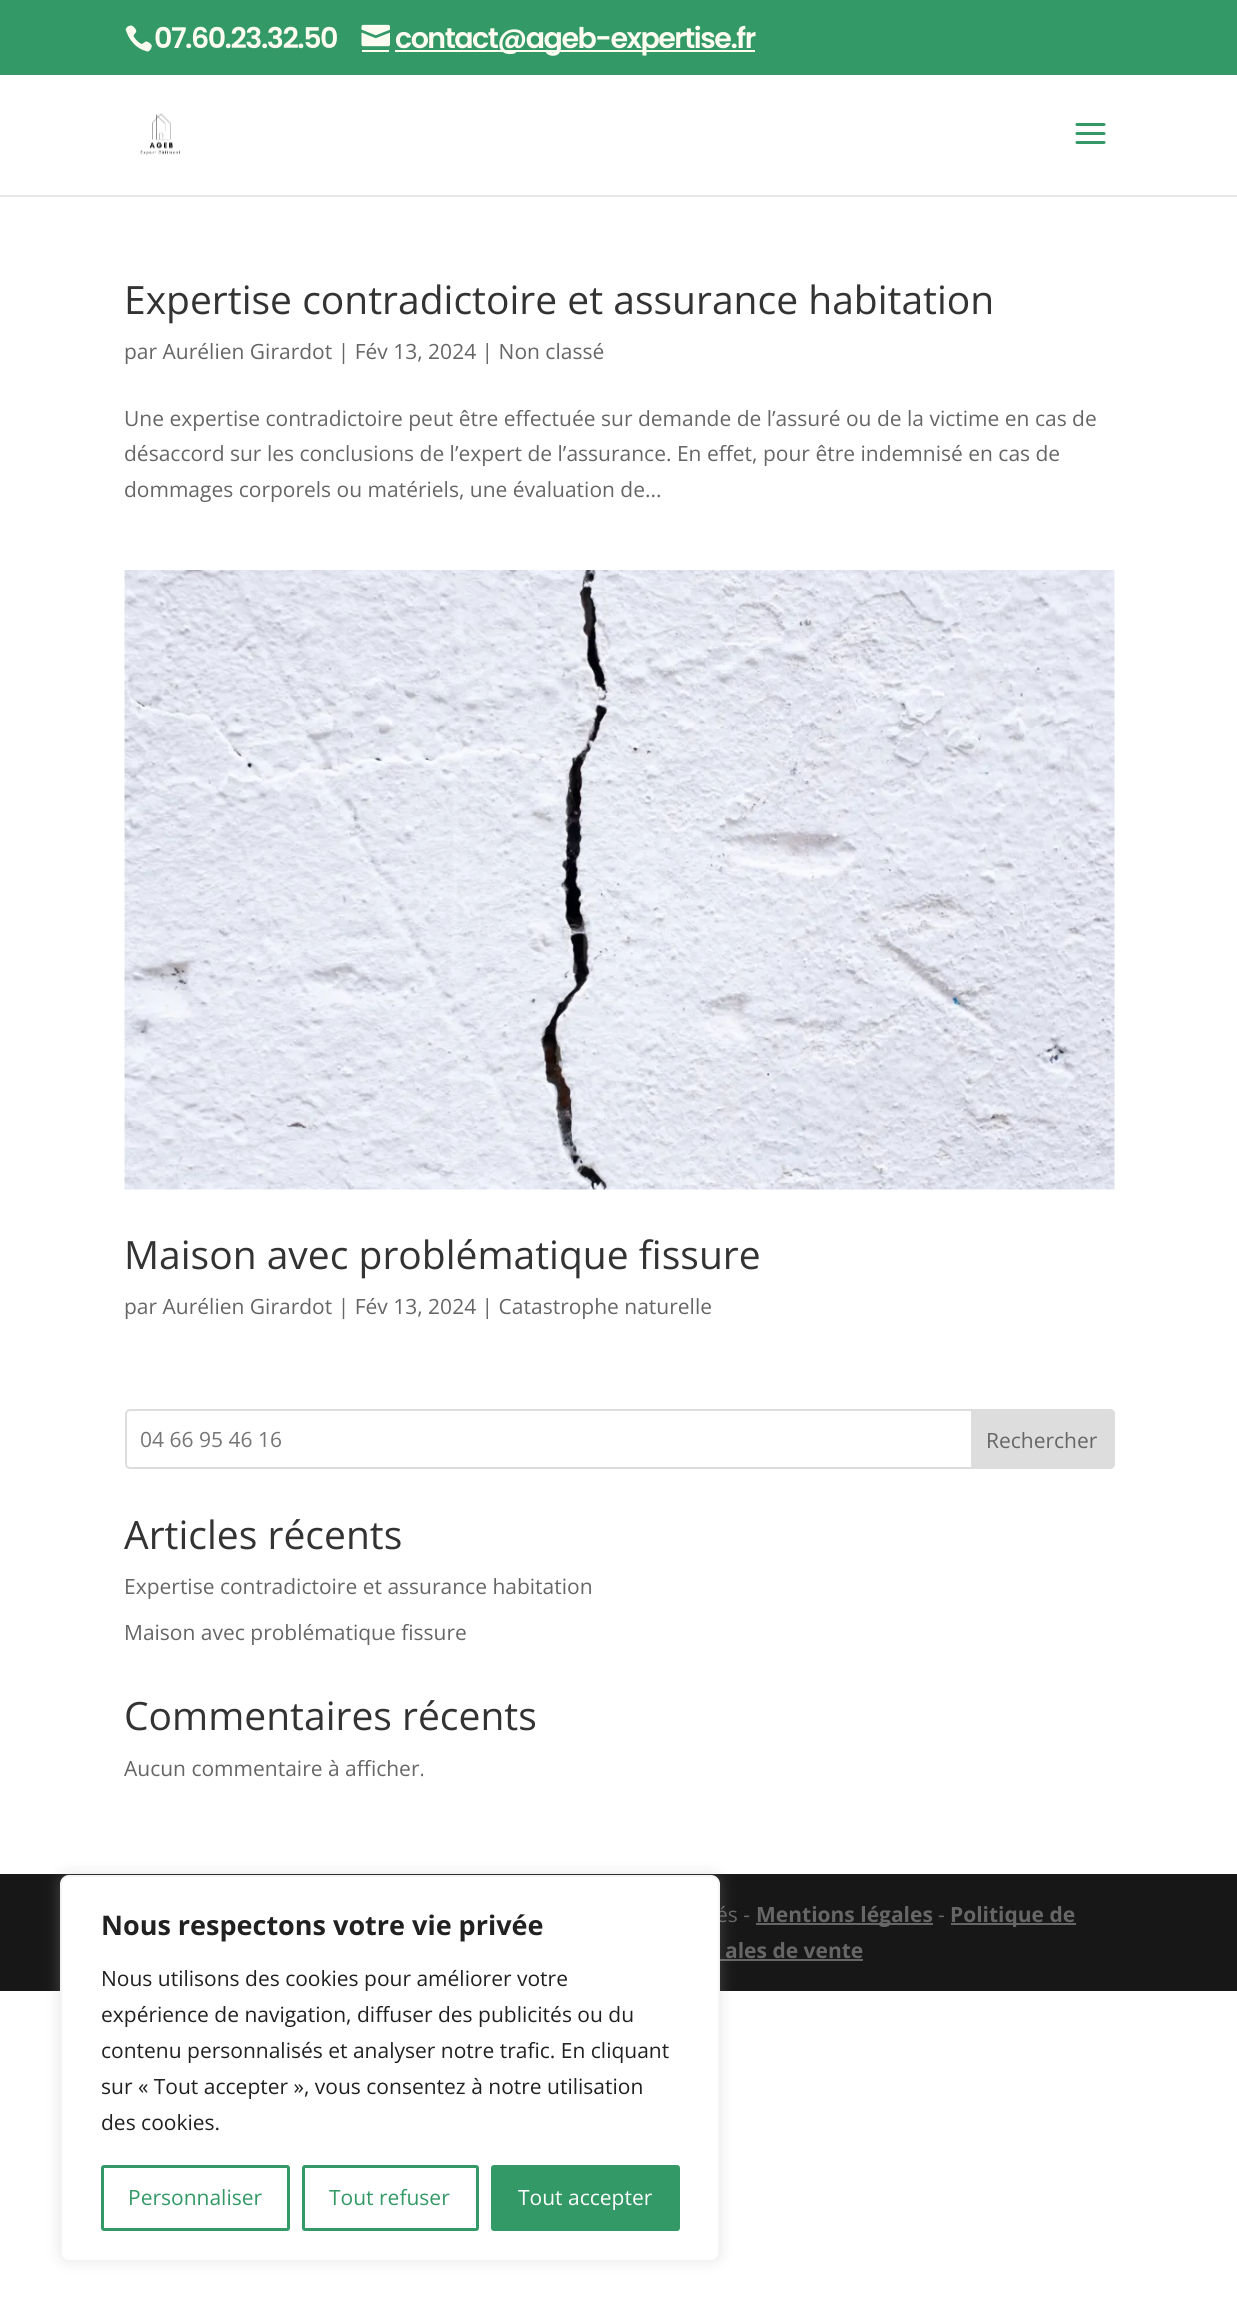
import math
import cairocffi as cairo

surface = cairo.ImageSurface(cairo.FORMAT_RGB24, 1237, 2321)
ctx = cairo.Context(surface)
options = cairo.FontOptions()
options.set_hint_metrics(cairo.HINT_METRICS_OFF)
options.set_hint_style(cairo.HINT_STYLE_NONE)
ctx.set_font_options(options)
ctx.set_miter_limit(4)


def rgb(r, g, b):
    ctx.set_source_rgb(r / 255, g / 255, b / 255)


def face(family, size, italic, bold):
    ctx.select_font_face(family, cairo.FONT_SLANT_ITALIC if italic else cairo.FONT_SLANT_NORMAL, cairo.FONT_WEIGHT_BOLD if bold else cairo.FONT_WEIGHT_NORMAL)
    ctx.set_font_size(size)


def label(x, y, s):
    ctx.move_to(x, y)
    ctx.show_text(s)


def tracked(x, y, s, letter, word):
    ctx.move_to(x, y)
    for ch in s:
        ctx.show_text(ch)
        ctx.rel_move_to(letter + word * (ch == ' '), 0)


def rect(x, y, w, h):
    ctx.rectangle(x, y, w, h)
    ctx.fill()


def rrect(x, y, w, h, r):
    ctx.new_sub_path()
    for i, (u, v) in enumerate([(x + w - r, y + h - r), (x + r, y + h - r), (x + r, y + r), (x + w - r, y + r)]):
        ctx.arc(u, v, r, i * math.pi / 2, (i + 1) * math.pi / 2)
    ctx.close_path()


def soft_shadow(x, y, w, h, r, blur, alpha):
    ctx.push_group_with_content(cairo.CONTENT_ALPHA)
    ctx.set_operator(cairo.OPERATOR_SOURCE)
    for i in range(15, -16, -2):
        e = blur * i / 6
        if min(w, h) + 2 * e > 0:
            ctx.set_source_rgba(0, 0, 0, alpha * math.erfc((i - 1) / 8.5) / 2)
            rrect(x - e, y - e, w + 2 * e, h + 2 * e, max(0, min(r + e + blur * .6, min(w, h) / 2 + e)))
            ctx.fill()
    ctx.mask(ctx.pop_group())


def image(path, x, y, w, h):
    ctx.save()
    ctx.set_source_surface(cairo.ImageSurface.create_from_png(path), x, y)
    ctx.rectangle(x, y, w, h)
    ctx.fill()
    ctx.restore()


rgb(255, 255, 255)
ctx.paint()
rgb(51, 153, 102)
rect(0, 0, 1237, 75)
image('image0.png', 125, 25, 27, 27)
face('Poppins SemiBold', 28.5, 0, 0)
rgb(255, 252, 242)
tracked(154, 48, '07.60.23.32.50', -1.5, 0)
image('image1.png', 361, 24, 29, 23)
rect(395, 50, 360, 2)
tracked(395, 48, 'contact@ageb-expertise.fr', -1.5, 0)
rect(362, 50, 27, 2)
rgb(230, 230, 230)
ctx.new_path()
ctx.move_to(0, 195)
ctx.line_to(0, 197)
ctx.line_to(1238, 197)
ctx.line_to(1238, 77)
ctx.line_to(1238, 195)
ctx.close_path()
ctx.fill()
image('image2.png', 140, 113, 41, 42)
image('image3.png', 1075, 123, 31, 21)
face('Open Sans', 39, 0, 0)
rgb(51, 51, 51)
label(124, 314, 'Expertise contradictoire et assurance habitation')
face('Open Sans', 21, 0, 0)
rgb(102, 102, 102)
label(124, 359, 'par Aurélien Girardot | Fév 13, 2024 | Non classé')
label(124, 426, 'Une expertise contradictoire peut être effectuée sur demande de l’assuré ou de la victime en cas de')
label(124, 461, 'désaccord sur les conclusions de l’expert de l’assurance. En effet, pour être indemnisé en cas de')
label(124, 497, 'dommages corporels ou matériels, une évaluation de...')
image('image4.png', 124, 570, 991, 620)
face('Open Sans', 39, 0, 0)
rgb(51, 51, 51)
label(124, 1269, 'Maison avec problématique fissure')
face('Open Sans', 21, 0, 0)
rgb(102, 102, 102)
label(124, 1314, 'par Aurélien Girardot | Fév 13, 2024 | Catastrophe naturelle')
rrect(126, 1410, 988, 58, 4)
rgb(221, 221, 221)
ctx.stroke()
rgb(117, 117, 117)
label(140, 1447, '04 66 95 46 16')
rgb(221, 221, 221)
ctx.new_path()
ctx.move_to(972, 1410)
ctx.line_to(1110, 1410)
ctx.curve_to(1112, 1410, 1114, 1412, 1114, 1414)
ctx.line_to(1114, 1464)
ctx.curve_to(1114, 1466, 1112, 1468, 1110, 1468)
ctx.line_to(972, 1468)
ctx.close_path()
ctx.fill_preserve()
ctx.stroke()
rgb(102, 102, 102)
label(986, 1448, 'Rechercher')
face('Open Sans', 39, 0, 0)
rgb(51, 51, 51)
label(124, 1549, 'Articles récents')
face('Open Sans', 21, 0, 0)
rgb(102, 102, 102)
label(124, 1594, 'Expertise contradictoire et assurance habitation')
label(124, 1640, 'Maison avec problématique fissure')
face('Open Sans', 39, 0, 0)
rgb(51, 51, 51)
label(124, 1730, 'Commentaires récents')
face('Open Sans', 21, 0, 0)
rgb(102, 102, 102)
label(124, 1776, 'Aucun commentaire à afficher.')
rgb(23, 23, 23)
rect(0, 1874, 1237, 117)
rgb(102, 102, 102)
label(716, 1922, 'és -')
rect(756, 1923, 177, 2)
face('Open Sans', 21, 0, 1)
label(756, 1922, 'Mentions légales')
face('Open Sans', 21, 0, 0)
label(938, 1922, '-')
rect(951, 1923, 125, 2)
face('Open Sans', 21, 0, 1)
label(950, 1922, 'Politique de')
label(725, 1958, 'ales de vente')
rect(720, 1959, 143, 2)
rgb(172, 171, 171)
soft_shadow(60, 1874, 660, 387, 9, 7.5, 0.3)
rgb(255, 255, 255)
rrect(61, 1876, 658, 385, 8)
ctx.fill_preserve()
rgb(244, 244, 244)
ctx.stroke()
face('Open Sans', 27, 0, 1)
rgb(33, 33, 33)
label(101, 1935, 'Nous respectons votre vie privée')
face('Open Sans', 21, 0, 0)
label(101, 1986, 'Nous utilisons des cookies pour améliorer votre')
label(101, 2022, 'expérience de navigation, diffuser des publicités ou du')
label(101, 2058, 'contenu personnalisés et analyser notre trafic. En cliquant')
label(101, 2094, 'sur « Tout accepter », vous consentez à notre utilisation')
label(101, 2130, 'des cookies.')
rrect(102.5, 2166.5, 186, 63, 1.5)
rgb(51, 153, 102)
ctx.set_line_width(3)
ctx.stroke()
label(128, 2205, 'Personnaliser')
rrect(303.5, 2166.5, 174, 63, 1.5)
ctx.stroke()
label(329, 2205, 'Tout refuser')
rrect(492.5, 2166.5, 186, 63, 1.5)
ctx.fill_preserve()
ctx.stroke()
rgb(255, 255, 255)
label(518, 2205, 'Tout accepter')
surface.write_to_png('render.png')
